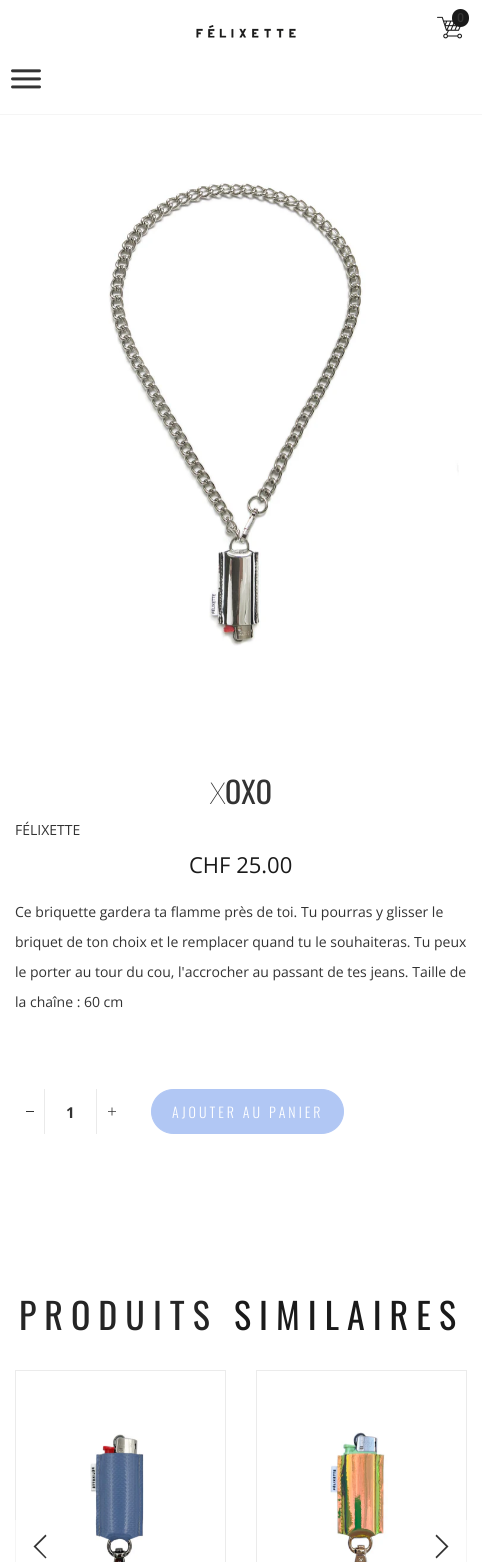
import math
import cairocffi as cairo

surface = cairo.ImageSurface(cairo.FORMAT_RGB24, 482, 1562)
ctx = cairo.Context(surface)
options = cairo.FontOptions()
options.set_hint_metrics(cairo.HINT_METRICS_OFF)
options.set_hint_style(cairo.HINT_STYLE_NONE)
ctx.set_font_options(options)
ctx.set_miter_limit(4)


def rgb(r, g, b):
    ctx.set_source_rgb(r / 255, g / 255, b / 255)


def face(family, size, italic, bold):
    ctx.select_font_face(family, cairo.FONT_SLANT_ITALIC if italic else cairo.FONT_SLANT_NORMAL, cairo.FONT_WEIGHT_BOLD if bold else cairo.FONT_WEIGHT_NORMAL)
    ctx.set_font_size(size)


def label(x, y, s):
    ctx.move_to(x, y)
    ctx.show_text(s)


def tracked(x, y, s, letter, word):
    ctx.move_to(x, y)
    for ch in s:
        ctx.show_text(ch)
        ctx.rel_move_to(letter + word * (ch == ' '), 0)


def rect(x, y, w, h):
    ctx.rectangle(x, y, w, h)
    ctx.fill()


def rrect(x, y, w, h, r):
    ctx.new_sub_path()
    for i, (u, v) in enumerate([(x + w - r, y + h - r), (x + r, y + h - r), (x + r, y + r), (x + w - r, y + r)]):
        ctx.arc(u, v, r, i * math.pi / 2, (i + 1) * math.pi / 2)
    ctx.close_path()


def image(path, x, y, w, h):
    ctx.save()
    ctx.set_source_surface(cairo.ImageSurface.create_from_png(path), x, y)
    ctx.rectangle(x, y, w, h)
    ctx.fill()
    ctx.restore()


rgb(255, 255, 255)
ctx.paint()
rgb(245, 245, 245)
rect(0, 114, 482, 1)
image('image0.png', 437, 16, 25, 23)
rgb(26, 26, 26)
rrect(452, 9, 17, 18, 8.5)
ctx.fill()
face('Roboto', 12, 0, 1)
rgb(51, 51, 51)
label(457, 22, '0')
image('image1.png', 196, 25, 100, 13)
image('image2.png', 11, 69, 30, 20)
image('image3.png', 108, 181, 351, 465)
face('Noto Sans Thin', 30, 0, 0)
label(210, 804, 'X')
face('Oswald', 30, 0, 0)
label(225, 804, 'OXO')
face('Open Sans', 14, 0, 0)
label(15, 835, 'FÉLIXETTE')
face('Open Sans', 22, 0, 0)
rgb(26, 26, 26)
label(189, 873, 'CHF 25.00')
face('Open Sans', 14, 0, 0)
rgb(51, 51, 51)
label(15, 917, 'Ce briquette gardera ta flamme près de toi. Tu pourras y glisser le')
label(15, 947, 'briquet de ton choix et le remplacer quand tu le souhaiteras. Tu peux')
label(15, 977, 'le porter au tour du cou, l\'accrocher au passant de tes jeans. Taille de')
label(15, 1007, 'la chaîne : 60 cm')
rgb(234, 234, 234)
rect(44, 1089, 1, 45)
rgb(51, 51, 51)
rect(26, 1111, 8, 1)
rgb(234, 234, 234)
rect(96, 1089, 1, 45)
image('image4.png', 108, 1107, 8, 9)
face('Open Sans', 15, 0, 1)
rgb(51, 51, 51)
label(66, 1118, '1')
rgb(177, 199, 244)
rrect(151.5, 1089.5, 192, 44, 22)
ctx.fill_preserve()
ctx.set_line_width(1)
ctx.stroke()
face('Oswald Light', 14, 0, 0)
rgb(255, 255, 255)
tracked(172, 1118, 'AJOUTER AU PANIER', 3, 0)
face('Oswald', 36, 0, 0)
rgb(37, 37, 37)
tracked(19, 1330, 'PRODUITS', 8, 0)
rgb(26, 26, 26)
tracked(234, 1330, 'SIMILAIRES', 8, 0)
ctx.rectangle(15.5, 1370.5, 210, 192)
rgb(235, 235, 235)
ctx.stroke()
image('image5.png', 90, 1434, 54, 128)
ctx.rectangle(256.5, 1370.5, 210, 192)
ctx.stroke()
image('image6.png', 330, 1432, 58, 130)
ctx.set_source_rgba(1, 1, 1, 0.5)
rect(15, 1520, 1, 42)
rgb(51, 51, 51)
ctx.new_path()
ctx.move_to(45.5, 1558.5)
ctx.line_to(33.5, 1546.5)
ctx.line_to(45.5, 1534.5)
ctx.line_to(46.5, 1536)
ctx.line_to(36, 1546.5)
ctx.line_to(46.5, 1557.5)
ctx.close_path()
ctx.fill()
ctx.set_source_rgba(1, 1, 1, 0.5)
rect(466, 1520, 1, 42)
rgb(51, 51, 51)
ctx.new_path()
ctx.move_to(436.5, 1534.5)
ctx.line_to(448.5, 1546.5)
ctx.line_to(436.5, 1558.5)
ctx.line_to(435.5, 1557)
ctx.line_to(446, 1546.5)
ctx.line_to(435.5, 1536)
ctx.close_path()
ctx.fill()
surface.write_to_png('render.png')
